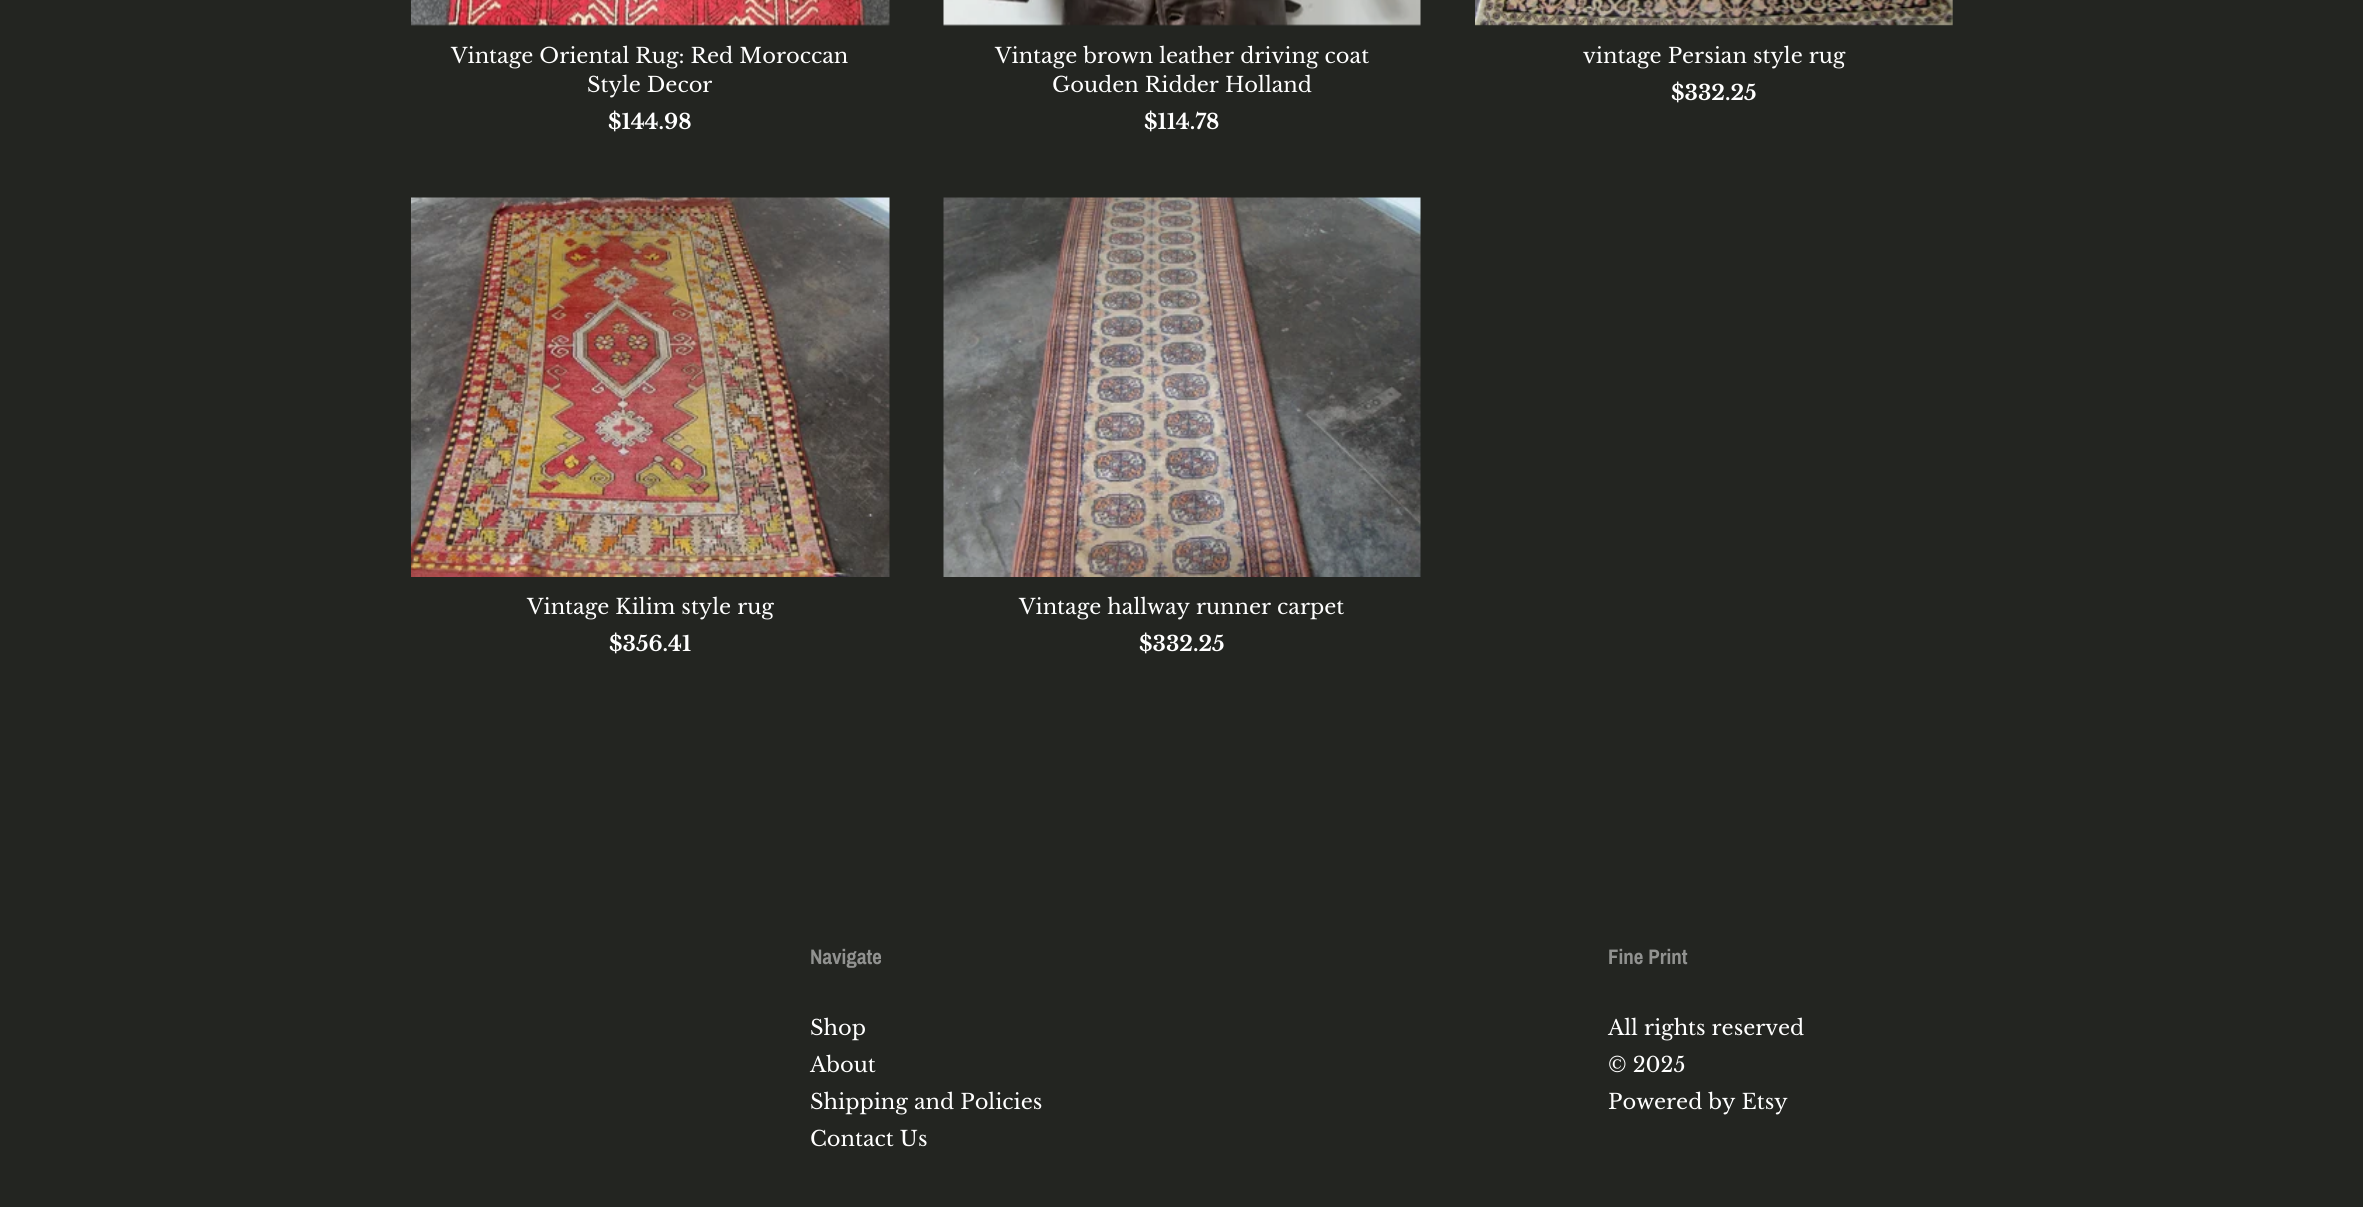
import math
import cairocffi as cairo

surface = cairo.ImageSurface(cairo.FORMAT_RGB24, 2363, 1207)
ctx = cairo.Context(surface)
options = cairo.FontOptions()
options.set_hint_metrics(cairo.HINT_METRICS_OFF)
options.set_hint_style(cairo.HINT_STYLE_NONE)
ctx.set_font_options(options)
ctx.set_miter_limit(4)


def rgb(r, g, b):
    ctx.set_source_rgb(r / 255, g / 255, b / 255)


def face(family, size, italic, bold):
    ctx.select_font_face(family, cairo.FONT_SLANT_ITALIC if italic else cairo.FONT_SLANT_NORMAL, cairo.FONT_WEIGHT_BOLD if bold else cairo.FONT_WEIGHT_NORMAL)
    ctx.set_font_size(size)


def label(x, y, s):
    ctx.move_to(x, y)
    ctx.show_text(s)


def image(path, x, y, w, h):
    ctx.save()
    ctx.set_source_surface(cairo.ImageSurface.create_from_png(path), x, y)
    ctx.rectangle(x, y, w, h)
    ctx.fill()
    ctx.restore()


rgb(35, 37, 33)
ctx.paint()
image('image0.png', 411, 0, 479, 26)
face('Libre Baskerville', 21, 0, 0)
rgb(255, 255, 255)
label(451, 63, 'Vintage Oriental Rug: Red Moroccan')
label(587, 92, 'Style Decor')
face('Libre Baskerville', 21, 0, 1)
label(608, 129, '$144.98')
image('image1.png', 943, 0, 478, 26)
face('Libre Baskerville', 21, 0, 0)
label(995, 63, 'Vintage brown leather driving coat')
label(1052, 92, 'Gouden Ridder Holland')
face('Libre Baskerville', 21, 0, 1)
label(1144, 129, '$114.78')
image('image2.png', 1475, 0, 478, 26)
face('Libre Baskerville', 21, 0, 0)
label(1583, 63, 'vintage Persian style rug')
face('Libre Baskerville', 21, 0, 1)
label(1671, 100, '$332.25')
image('image3.png', 411, 197, 479, 380)
face('Libre Baskerville', 21, 0, 0)
label(527, 614, 'Vintage Kilim style rug')
face('Libre Baskerville', 21, 0, 1)
label(609, 651, '$356.41')
image('image4.png', 943, 197, 478, 380)
face('Libre Baskerville', 21, 0, 0)
label(1019, 614, 'Vintage hallway runner carpet')
face('Libre Baskerville', 21, 0, 1)
label(1139, 651, '$332.25')
face('Archivo Narrow', 21, 0, 1)
rgb(145, 146, 144)
label(810, 964, 'Navigate')
face('Libre Baskerville', 21, 0, 0)
rgb(255, 255, 255)
label(810, 1035, 'Shop')
label(810, 1072, 'About')
label(810, 1109, 'Shipping and Policies')
label(810, 1146, 'Contact Us')
face('Archivo Narrow', 21, 0, 1)
rgb(145, 146, 144)
label(1608, 964, 'Fine Print')
face('Libre Baskerville', 21, 0, 0)
rgb(255, 255, 255)
label(1608, 1035, 'All rights reserved')
label(1608, 1072, '© 2025')
label(1608, 1109, 'Powered by Etsy')
surface.write_to_png('render.png')
